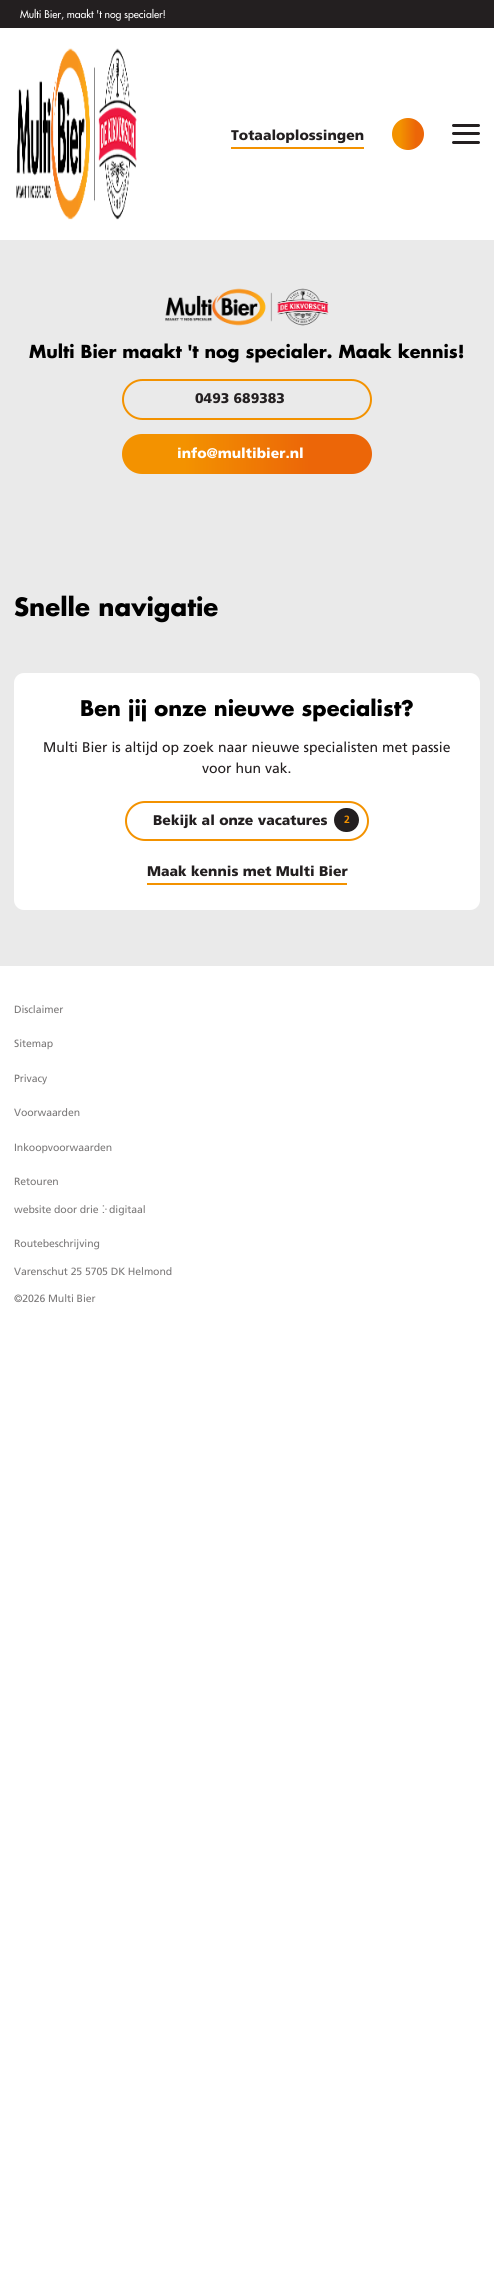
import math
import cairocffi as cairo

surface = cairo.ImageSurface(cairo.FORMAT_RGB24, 494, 2280)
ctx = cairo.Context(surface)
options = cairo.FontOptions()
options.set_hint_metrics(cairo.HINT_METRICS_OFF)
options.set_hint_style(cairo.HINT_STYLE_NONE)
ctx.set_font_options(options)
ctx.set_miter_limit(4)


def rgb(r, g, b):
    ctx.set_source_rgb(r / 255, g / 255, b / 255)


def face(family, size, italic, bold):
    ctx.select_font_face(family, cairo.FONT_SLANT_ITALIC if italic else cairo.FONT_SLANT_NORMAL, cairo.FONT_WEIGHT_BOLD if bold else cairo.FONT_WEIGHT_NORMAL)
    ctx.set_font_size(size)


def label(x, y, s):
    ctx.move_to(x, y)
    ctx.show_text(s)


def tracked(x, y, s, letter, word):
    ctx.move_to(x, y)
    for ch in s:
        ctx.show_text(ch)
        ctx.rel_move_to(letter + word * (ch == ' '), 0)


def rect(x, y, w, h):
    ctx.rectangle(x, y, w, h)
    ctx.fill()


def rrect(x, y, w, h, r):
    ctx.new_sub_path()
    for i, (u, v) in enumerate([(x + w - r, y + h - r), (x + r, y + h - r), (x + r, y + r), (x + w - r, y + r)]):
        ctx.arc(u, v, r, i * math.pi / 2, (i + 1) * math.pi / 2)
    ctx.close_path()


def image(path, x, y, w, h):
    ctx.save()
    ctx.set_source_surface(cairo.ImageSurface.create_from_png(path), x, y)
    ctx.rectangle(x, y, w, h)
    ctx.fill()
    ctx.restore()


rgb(255, 255, 255)
ctx.paint()
rgb(35, 31, 32)
rect(0, 0, 494, 28)
face('Futura Medium', 10.5, 0, 0)
rgb(255, 255, 255)
tracked(20, 18, 'Multi Bier, maakt \'t nog specialer!', -0.1, 0)
image('image0.png', 16, 48, 121, 172)
rgb(243, 146, 0)
rect(231, 147, 133, 2)
face('Frutiger Black', 14, 0, 0)
rgb(35, 31, 32)
label(231, 140, 'Totaaloplossingen')
gradient = cairo.LinearGradient(392, 134, 424, 134)
gradient.add_color_stop_rgba(0.25, 0.953, 0.573, 0, 1)
gradient.add_color_stop_rgba(0.75, 0.925, 0.4, 0.031, 1)
ctx.set_source(gradient)
ctx.new_path()
ctx.arc(408, 134, 16, 0, 2 * math.pi)
ctx.fill()
rgb(35, 31, 32)
rrect(452, 124, 28, 3, 1.5)
ctx.fill()
rrect(452, 132, 28, 3, 1.5)
ctx.fill()
rrect(452, 141, 28, 3, 1.5)
ctx.fill()
rgb(234, 234, 234)
rect(0, 240, 494, 726)
image('image1.png', 165, 288, 164, 38)
face('Futura', 17.5, 0, 1)
rgb(0, 0, 0)
label(29, 358, 'Multi Bier maakt \'t nog specialer. Maak kennis!')
rrect(123, 380, 248, 39, 19.5)
rgb(243, 146, 0)
ctx.stroke()
face('Frutiger Black', 14, 0, 0)
rgb(35, 31, 32)
label(195, 403, '0493 689383')
gradient = cairo.LinearGradient(122, 454, 372, 454)
gradient.add_color_stop_rgba(0.25, 0.953, 0.573, 0, 1)
gradient.add_color_stop_rgba(0.75, 0.925, 0.4, 0.031, 1)
ctx.set_source(gradient)
rrect(122, 434, 250, 40, 20)
ctx.fill()
rgb(255, 255, 255)
label(177, 458, 'info@multibier.nl')
face('Futura', 24.5, 0, 1)
rgb(0, 0, 0)
label(14, 616, 'Snelle navigatie')
rgb(255, 255, 255)
rrect(14, 673, 466, 237, 10)
ctx.fill()
face('Futura', 21, 0, 1)
rgb(0, 0, 0)
label(80, 716, 'Ben jij onze nieuwe specialist?')
face('Frutiger', 14, 0, 0)
rgb(35, 31, 32)
label(43, 752, 'Multi Bier is altijd op zoek naar nieuwe specialisten met passie')
label(202, 773, 'voor hun vak.')
rrect(126, 802, 242, 38, 19)
rgb(243, 146, 0)
ctx.stroke()
face('Frutiger Black', 14, 0, 0)
rgb(35, 31, 32)
label(153, 825, 'Bekijk al onze vacatures')
rrect(334, 808, 25, 24, 12)
ctx.fill()
face('Frutiger', 10.5, 0, 1)
rgb(243, 146, 0)
tracked(344, 823, '2', -0.1, 0)
rect(147, 883, 200, 2)
face('Frutiger Black', 14, 0, 0)
rgb(35, 31, 32)
label(147, 876, 'Maak kennis met Multi Bier')
face('Frutiger', 10.5, 0, 0)
rgb(123, 121, 121)
tracked(14, 1013, 'Disclaimer', -0.1, 0)
tracked(14, 1047, 'Sitemap', -0.1, 0)
tracked(14, 1082, 'Privacy', -0.1, 0)
tracked(14, 1116, 'Voorwaarden', -0.1, 0)
tracked(14, 1151, 'Inkoopvoorwaarden', -0.1, 0)
tracked(14, 1185, 'Retouren', -0.1, 0)
tracked(14, 1213, 'website door drie', -0.1, 0)
face('DejaVu Sans', 10.5, 0, 0)
tracked(102, 1213, 'ⴾ', -0.1, 0)
face('Frutiger', 10.5, 0, 0)
tracked(109, 1213, 'digitaal', -0.1, 0)
tracked(14, 1247, 'Routebeschrijving', -0.1, 0)
tracked(14, 1275, 'Varenschut 25 5705 DK Helmond', -0.1, 0)
tracked(14, 1302, '©2026 Multi Bier', -0.1, 0)
surface.write_to_png('render.png')
